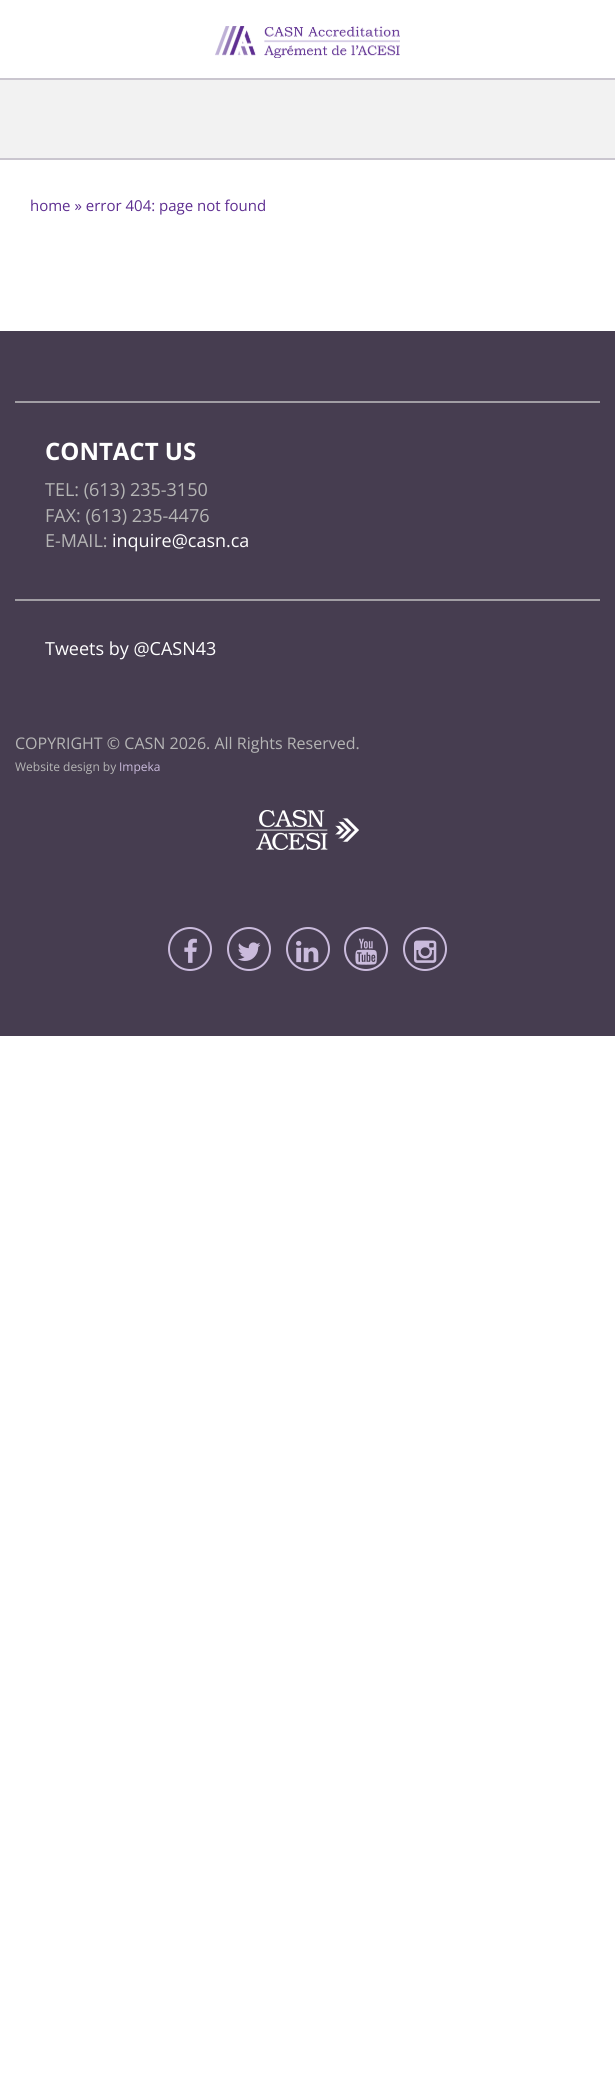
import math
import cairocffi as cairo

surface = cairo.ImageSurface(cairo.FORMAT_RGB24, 615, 2095)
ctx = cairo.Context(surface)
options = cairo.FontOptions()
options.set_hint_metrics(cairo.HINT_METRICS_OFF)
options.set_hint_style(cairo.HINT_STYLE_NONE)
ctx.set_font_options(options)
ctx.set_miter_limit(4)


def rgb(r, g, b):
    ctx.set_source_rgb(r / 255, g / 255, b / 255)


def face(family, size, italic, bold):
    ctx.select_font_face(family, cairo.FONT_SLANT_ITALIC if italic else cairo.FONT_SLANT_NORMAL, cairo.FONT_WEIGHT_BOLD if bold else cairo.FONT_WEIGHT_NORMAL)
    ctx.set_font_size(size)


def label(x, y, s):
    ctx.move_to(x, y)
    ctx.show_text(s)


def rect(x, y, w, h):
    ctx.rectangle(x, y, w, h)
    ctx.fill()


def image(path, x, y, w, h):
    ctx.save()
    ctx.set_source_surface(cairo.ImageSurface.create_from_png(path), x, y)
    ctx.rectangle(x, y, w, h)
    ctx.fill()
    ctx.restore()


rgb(255, 255, 255)
ctx.paint()
rgb(202, 198, 207)
rect(0, 78, 615, 2)
image('image0.png', 215, 26, 185, 32)
rgb(242, 242, 242)
rect(0, 80, 615, 78)
rgb(202, 198, 207)
rect(0, 158, 615, 2)
face('Open Sans', 15, 0, 0)
rgb(94, 46, 145)
label(30, 211, 'home » error 404: page not found')
rgb(70, 61, 80)
rect(0, 331, 615, 705)
rgb(161, 158, 164)
rect(15, 401, 585, 2)
face('Open Sans', 24, 0, 1)
rgb(255, 255, 255)
label(45, 460, 'CONTACT US')
face('Open Sans', 18, 0, 0)
rgb(181, 181, 181)
label(45, 496, 'TEL: (613) 235-3150')
label(45, 522, 'FAX: (613) 235-4476')
label(45, 547, 'E-MAIL:')
rgb(255, 255, 255)
label(112, 547, 'inquire@casn.ca')
rgb(161, 158, 164)
rect(15, 599, 585, 2)
rgb(255, 255, 255)
label(45, 655, 'Tweets by @CASN43')
face('Open Sans', 16, 0, 0)
rgb(181, 181, 181)
label(15, 749, 'COPYRIGHT © CASN 2026. All Rights Reserved.')
face('Open Sans', 12, 0, 0)
label(15, 771, 'Website design by')
rgb(202, 187, 220)
label(119, 771, 'Impeka')
image('image1.png', 256, 810, 103, 40)
ctx.arc(190, 949, 21, 0, 2 * math.pi)
ctx.stroke()
image('image2.png', 184, 938, 13, 25)
ctx.arc(249, 949, 21, 0, 2 * math.pi)
ctx.stroke()
image('image3.png', 238, 942, 23, 19)
ctx.arc(308, 949, 21, 0, 2 * math.pi)
ctx.stroke()
image('image4.png', 296, 940, 23, 23)
ctx.arc(366, 949, 21, 0, 2 * math.pi)
ctx.stroke()
image('image5.png', 355, 938, 22, 27)
ctx.arc(425, 949, 21, 0, 2 * math.pi)
ctx.stroke()
image('image6.png', 414, 940, 23, 23)
surface.write_to_png('render.png')
